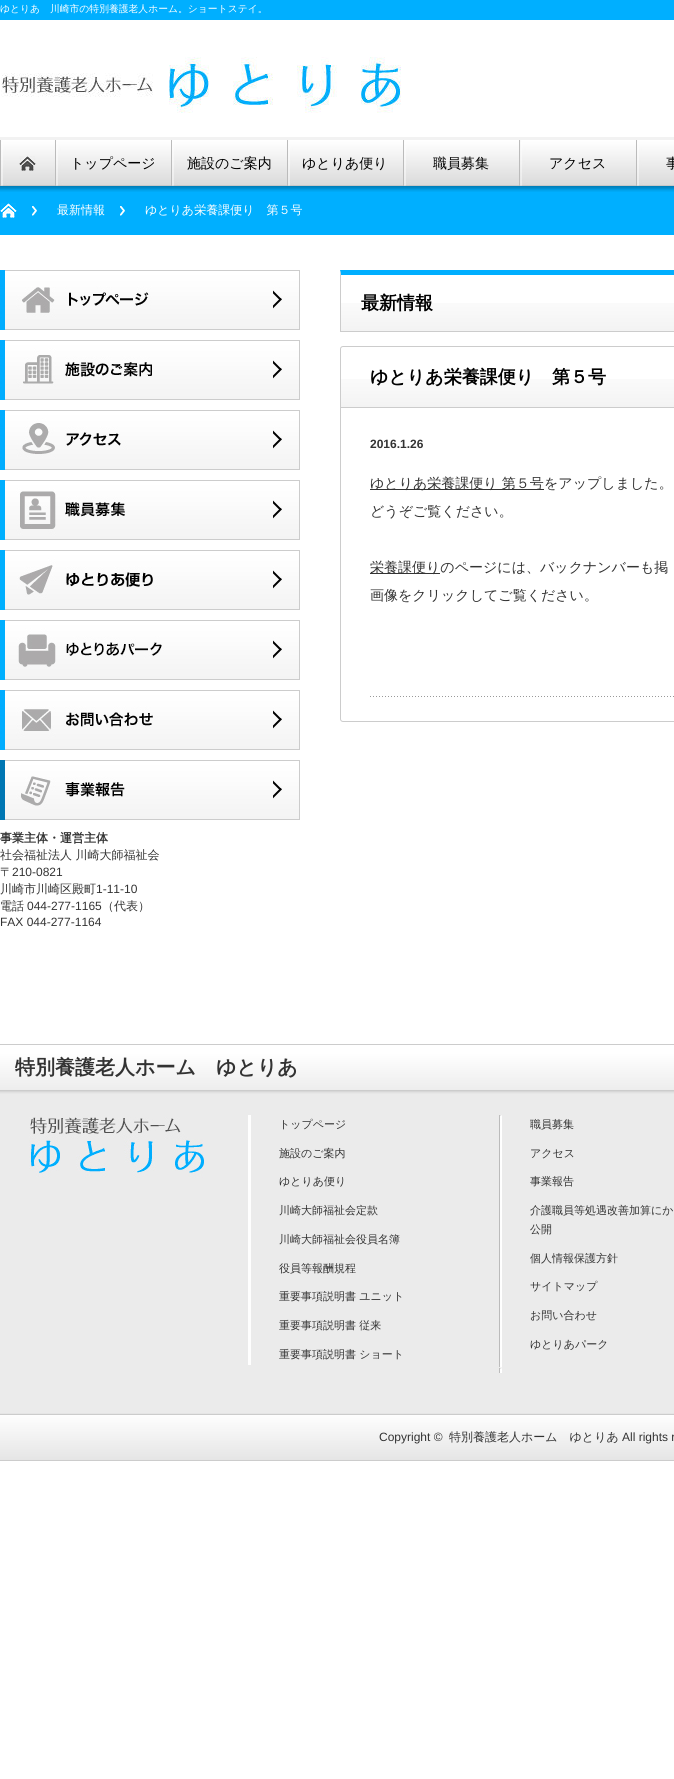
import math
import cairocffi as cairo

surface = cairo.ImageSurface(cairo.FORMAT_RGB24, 674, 1779)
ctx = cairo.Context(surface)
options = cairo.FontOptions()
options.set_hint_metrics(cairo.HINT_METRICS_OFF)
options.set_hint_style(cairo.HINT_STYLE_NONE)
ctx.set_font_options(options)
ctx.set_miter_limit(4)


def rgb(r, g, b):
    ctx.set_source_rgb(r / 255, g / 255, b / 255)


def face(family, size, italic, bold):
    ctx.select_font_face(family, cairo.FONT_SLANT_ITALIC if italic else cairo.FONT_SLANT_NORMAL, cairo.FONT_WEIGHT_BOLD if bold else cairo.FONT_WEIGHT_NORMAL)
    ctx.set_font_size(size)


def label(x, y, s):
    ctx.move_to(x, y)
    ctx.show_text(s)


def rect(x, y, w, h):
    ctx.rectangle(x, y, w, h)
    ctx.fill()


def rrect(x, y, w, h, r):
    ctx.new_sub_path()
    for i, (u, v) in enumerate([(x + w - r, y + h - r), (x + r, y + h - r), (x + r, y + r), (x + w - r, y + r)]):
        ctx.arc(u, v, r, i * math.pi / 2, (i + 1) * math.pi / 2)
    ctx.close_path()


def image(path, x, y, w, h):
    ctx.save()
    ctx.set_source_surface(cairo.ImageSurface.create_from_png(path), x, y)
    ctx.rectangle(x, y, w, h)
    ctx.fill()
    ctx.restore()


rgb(255, 255, 255)
ctx.paint()
rgb(0, 175, 255)
rect(0, 0, 674, 20)
face('WenQuanYi Zen Hei Medium', 9.8, 0, 0)
rgb(255, 255, 255)
label(0, 12, 'ゆとりあ　川崎市の特別養護老人ホーム。ショートステイ。')
rgb(242, 242, 242)
rect(0, 137, 674, 3)
image('image0.png', 1, 57, 400, 56)
image('image1.png', 0, 140, 55, 46)
image('image2.png', 1, 140, 54, 45)
image('image3.png', 19, 156, 17, 15)
image('image4.png', 55, 140, 116, 46)
image('image5.png', 56, 140, 115, 45)
face('WenQuanYi Zen Hei Medium', 14, 0, 0)
rgb(0, 0, 0)
label(70, 168, 'トップページ')
image('image4.png', 171, 140, 116, 46)
image('image5.png', 172, 140, 115, 45)
label(187, 168, '施設のご案内')
image('image4.png', 287, 140, 116, 46)
image('image5.png', 288, 140, 115, 45)
label(302, 168, 'ゆとりあ便り')
image('image4.png', 403, 140, 116, 46)
image('image5.png', 404, 140, 115, 45)
label(433, 168, '職員募集')
image('image6.png', 519, 140, 117, 46)
image('image7.png', 520, 140, 116, 45)
label(549, 168, 'アクセス')
image('image8.png', 636, 140, 38, 46)
image('image9.png', 637, 140, 37, 45)
label(666, 168, '事')
rgb(0, 175, 255)
rect(0, 186, 674, 49)
image('image10.png', 0, 186, 674, 6)
image('image11.png', 32, 206, 5, 10)
image('image12.png', 0, 203, 17, 15)
image('image11.png', 120, 206, 5, 10)
face('WenQuanYi Zen Hei Medium', 12, 0, 0)
rgb(255, 255, 255)
label(57, 214, '最新情報')
label(145, 214, 'ゆとりあ栄養課便り　第５号')
image('image13.png', 341, 303, 333, 28)
rgb(0, 175, 255)
ctx.new_path()
ctx.move_to(340, 270)
ctx.line_to(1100, 270)
ctx.line_to(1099, 275)
ctx.line_to(341, 275)
ctx.close_path()
ctx.fill()
rgb(204, 204, 204)
rect(340, 331, 334, 1)
ctx.new_path()
ctx.move_to(340, 332)
ctx.line_to(340, 270)
ctx.line_to(341, 275)
ctx.line_to(341, 331)
ctx.close_path()
ctx.fill()
face('WenQuanYi Zen Hei', 18, 0, 1)
rgb(0, 0, 0)
label(361, 309, '最新情報')
rrect(340.5, 346.5, 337, 375, 2.5)
rgb(204, 204, 204)
ctx.set_line_width(1)
ctx.stroke()
image('image13.png', 341, 379, 333, 28)
rect(341, 407, 333, 1)
rgb(0, 0, 0)
label(370, 383, 'ゆとりあ栄養課便り　第５号')
image('image14.png', 370, 696, 304, 1)
face('Liberation Sans', 12, 0, 1)
rgb(51, 51, 51)
label(370, 448, '2016.1.26')
rect(370, 489, 174, 1)
face('WenQuanYi Zen Hei Medium', 14, 0, 0)
label(370, 488, 'ゆとりあ栄養課便り 第５号')
label(544, 488, 'をアップしました。')
label(370, 516, 'どうぞご覧ください。')
rect(370, 573, 70, 1)
label(370, 572, '栄養課便りのページには、バックナンバーも掲')
label(370, 600, '画像をクリックしてご覧ください。')
image('image15.png', 0, 270, 300, 60)
image('image16.png', 0, 340, 300, 60)
image('image17.png', 0, 410, 300, 60)
image('image18.png', 0, 480, 300, 60)
image('image19.png', 0, 550, 300, 60)
image('image20.png', 0, 620, 300, 60)
image('image21.png', 0, 690, 300, 60)
image('image22.png', 0, 760, 300, 60)
face('WenQuanYi Zen Hei', 12, 0, 1)
label(0, 842, '事業主体・運営主体')
face('WenQuanYi Zen Hei Medium', 12, 0, 0)
label(0, 859, '社会福祉法人 川崎大師福祉会')
label(0, 876, '〒')
face('Liberation Sans', 12, 0, 0)
label(12, 876, '210-0821')
face('WenQuanYi Zen Hei Medium', 12, 0, 0)
label(0, 893, '川崎市川崎区殿町')
face('Liberation Sans', 12, 0, 0)
label(96, 893, '1-11-10')
face('WenQuanYi Zen Hei Medium', 12, 0, 0)
label(0, 910, '電話')
face('Liberation Sans', 12, 0, 0)
label(27, 910, '044-277-1165')
face('WenQuanYi Zen Hei Medium', 12, 0, 0)
label(102, 910, '（代表）')
face('Liberation Sans', 12, 0, 0)
label(0, 926, 'FAX 044-277-1164')
image('image23.png', 0, 1044, 674, 71)
face('WenQuanYi Zen Hei', 20, 0, 1)
label(15, 1074, '特別養護老人ホーム　ゆとりあ')
rgb(235, 235, 235)
rect(0, 1115, 674, 298)
rgb(254, 254, 254)
rect(248, 1115, 3, 250)
image('image24.png', 29, 1117, 175, 61)
image('image25.png', 499, 1115, 3, 258)
face('WenQuanYi Zen Hei Medium', 11, 0, 0)
rgb(51, 51, 51)
label(279, 1128, 'トップページ')
label(279, 1157, '施設のご案内')
label(279, 1185, 'ゆとりあ便り')
label(279, 1214, '川崎大師福祉会定款')
label(279, 1243, '川崎大師福祉会役員名簿')
label(279, 1272, '役員等報酬規程')
label(279, 1300, '重要事項説明書 ユニット')
label(279, 1329, '重要事項説明書 従来')
label(279, 1358, '重要事項説明書 ショート')
label(530, 1128, '職員募集')
label(530, 1157, 'アクセス')
label(530, 1185, '事業報告')
label(530, 1214, '介護職員等処遇改善加算にか')
label(530, 1233, '公開')
label(530, 1262, '個人情報保護方針')
label(530, 1290, 'サイトマップ')
label(530, 1319, 'お問い合わせ')
label(530, 1348, 'ゆとりあパーク')
image('image26.png', 0, 1413, 674, 48)
face('Liberation Sans', 12, 0, 0)
label(379, 1441, 'Copyright ©')
face('WenQuanYi Zen Hei Medium', 12, 0, 0)
label(449, 1441, '特別養護老人ホーム　ゆとりあ')
face('Liberation Sans', 12, 0, 0)
label(622, 1441, 'All rights r')
surface.write_to_png('render.png')
